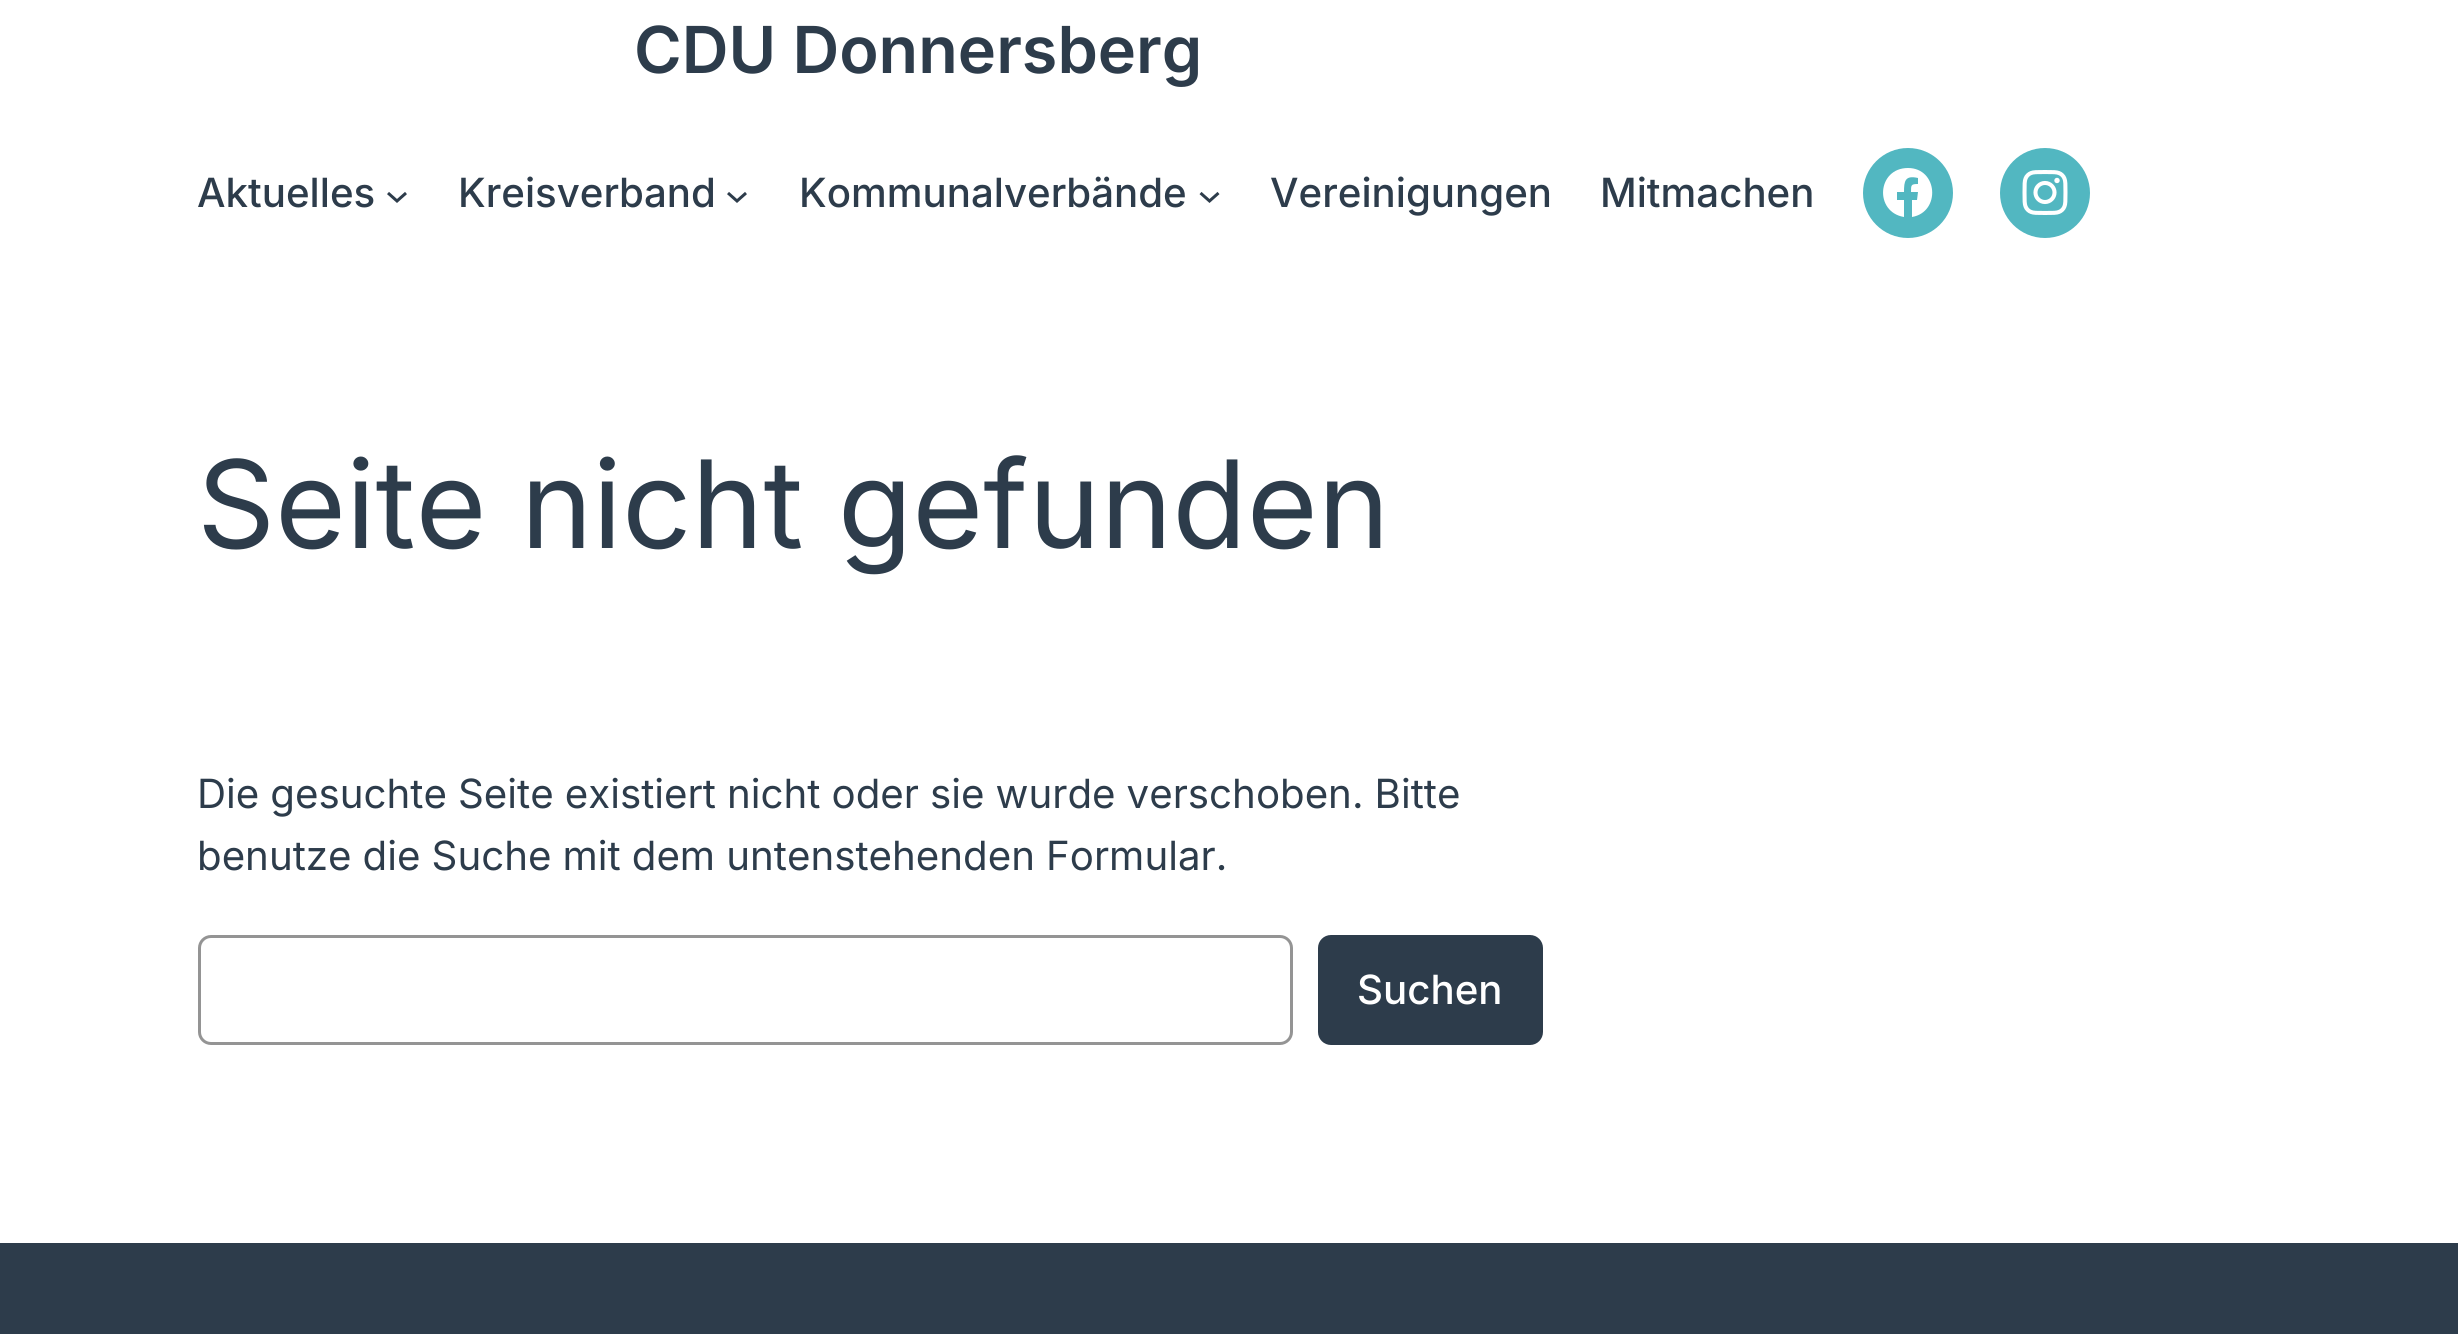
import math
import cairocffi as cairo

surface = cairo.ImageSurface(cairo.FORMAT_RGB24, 2458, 1334)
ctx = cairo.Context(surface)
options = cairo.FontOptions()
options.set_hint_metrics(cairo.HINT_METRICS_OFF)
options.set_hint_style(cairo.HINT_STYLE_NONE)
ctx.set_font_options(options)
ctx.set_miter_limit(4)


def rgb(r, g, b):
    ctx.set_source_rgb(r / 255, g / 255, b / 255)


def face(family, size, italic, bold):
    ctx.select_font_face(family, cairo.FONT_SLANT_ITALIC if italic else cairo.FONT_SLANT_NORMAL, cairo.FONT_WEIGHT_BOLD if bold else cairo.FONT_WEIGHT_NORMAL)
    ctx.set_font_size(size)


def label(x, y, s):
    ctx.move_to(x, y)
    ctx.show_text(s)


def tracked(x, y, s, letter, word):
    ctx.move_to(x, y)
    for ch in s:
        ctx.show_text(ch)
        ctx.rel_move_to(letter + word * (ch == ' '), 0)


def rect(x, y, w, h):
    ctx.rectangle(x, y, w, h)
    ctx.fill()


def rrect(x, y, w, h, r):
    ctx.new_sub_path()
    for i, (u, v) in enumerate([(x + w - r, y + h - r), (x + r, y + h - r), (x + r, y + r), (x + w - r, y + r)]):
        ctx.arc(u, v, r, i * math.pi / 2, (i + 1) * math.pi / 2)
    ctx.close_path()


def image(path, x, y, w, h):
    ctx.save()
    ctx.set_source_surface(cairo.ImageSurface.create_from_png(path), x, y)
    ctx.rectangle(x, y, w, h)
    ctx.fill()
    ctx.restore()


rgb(255, 255, 255)
ctx.paint()
face('Inter SemiBold', 64.75, 0, 0)
rgb(45, 60, 75)
label(634, 73, 'CDU Donnersberg')
face('Inter Medium', 40.25, 0, 0)
label(197, 207, 'Aktuelles')
ctx.new_path()
ctx.move_to(388, 193)
ctx.line_to(397, 201)
ctx.line_to(406, 193)
ctx.set_line_width(3)
ctx.stroke()
label(458, 207, 'Kreisverband')
ctx.new_path()
ctx.move_to(728, 193)
ctx.line_to(737, 201)
ctx.line_to(746, 193)
ctx.stroke()
label(799, 207, 'Kommunalverbände')
ctx.new_path()
ctx.move_to(1200.5, 193)
ctx.line_to(1209.5, 201)
ctx.line_to(1218.5, 193)
ctx.stroke()
label(1270, 207, 'Vereinigungen')
label(1600, 207, 'Mitmachen')
rgb(82, 183, 193)
ctx.new_path()
ctx.arc(1908, 193, 45, 0, 2 * math.pi)
ctx.fill()
rgb(255, 255, 255)
ctx.new_path()
ctx.move_to(1908, 168)
ctx.curve_to(1877, 168, 1874, 212, 1904, 217)
ctx.line_to(1904, 200)
ctx.line_to(1897, 200)
ctx.line_to(1897, 192)
ctx.line_to(1904, 192)
ctx.curve_to(1904, 181, 1905, 175, 1918, 178)
ctx.line_to(1918, 184)
ctx.curve_to(1911, 184, 1911, 185, 1911, 192)
ctx.line_to(1918, 192)
ctx.line_to(1917, 200)
ctx.line_to(1912, 200)
ctx.line_to(1912, 217)
ctx.curve_to(1941, 212, 1938, 168, 1908, 168)
ctx.close_path()
ctx.fill()
rgb(82, 183, 193)
ctx.arc(2045, 193, 45, 0, 2 * math.pi)
ctx.fill()
image('image0.png', 2022, 170, 46, 45)
face('Inter', 121.75, 0, 0)
rgb(45, 60, 75)
label(197, 548, 'Seite nicht gefunden')
face('Inter', 40.25, 0, 0)
tracked(197, 808, 'Die gesuchte Seite existiert nicht oder sie wurde verschoben. Bitte', 0, -0.25)
tracked(197, 870, 'benutze die Suche mit dem untenstehenden Formular.', 0, -0.25)
rrect(199.5, 936.5, 1092, 107, 11.5)
rgb(148, 148, 148)
ctx.stroke()
rgb(45, 60, 75)
rrect(1318, 935, 225, 110, 13)
ctx.fill()
face('Inter Medium', 40.25, 0, 0)
rgb(255, 255, 255)
label(1357, 1004, 'Suchen')
rgb(45, 60, 75)
rect(0, 1243, 2458, 91)
surface.write_to_png('render.png')
